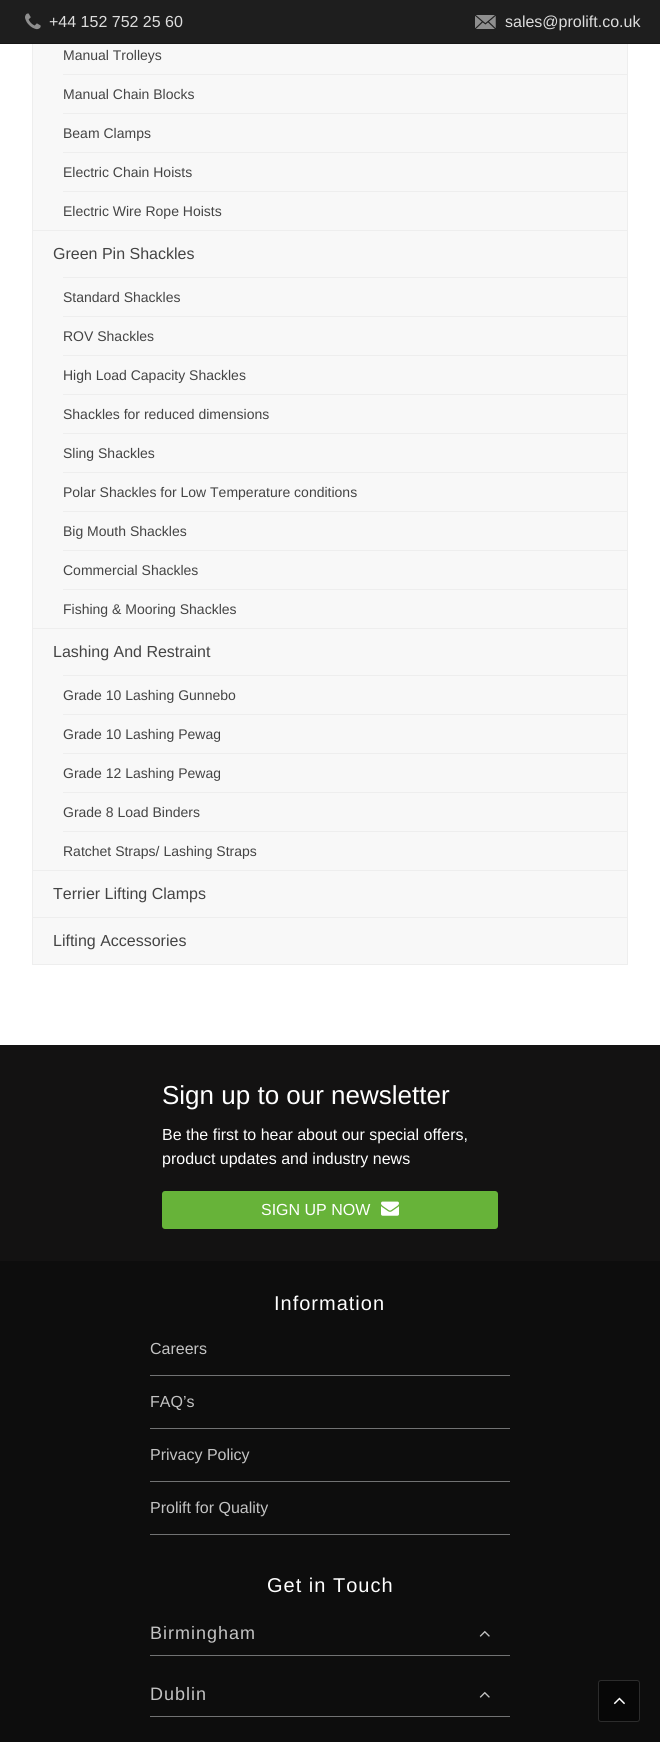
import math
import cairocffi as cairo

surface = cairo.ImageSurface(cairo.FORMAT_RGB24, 660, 1742)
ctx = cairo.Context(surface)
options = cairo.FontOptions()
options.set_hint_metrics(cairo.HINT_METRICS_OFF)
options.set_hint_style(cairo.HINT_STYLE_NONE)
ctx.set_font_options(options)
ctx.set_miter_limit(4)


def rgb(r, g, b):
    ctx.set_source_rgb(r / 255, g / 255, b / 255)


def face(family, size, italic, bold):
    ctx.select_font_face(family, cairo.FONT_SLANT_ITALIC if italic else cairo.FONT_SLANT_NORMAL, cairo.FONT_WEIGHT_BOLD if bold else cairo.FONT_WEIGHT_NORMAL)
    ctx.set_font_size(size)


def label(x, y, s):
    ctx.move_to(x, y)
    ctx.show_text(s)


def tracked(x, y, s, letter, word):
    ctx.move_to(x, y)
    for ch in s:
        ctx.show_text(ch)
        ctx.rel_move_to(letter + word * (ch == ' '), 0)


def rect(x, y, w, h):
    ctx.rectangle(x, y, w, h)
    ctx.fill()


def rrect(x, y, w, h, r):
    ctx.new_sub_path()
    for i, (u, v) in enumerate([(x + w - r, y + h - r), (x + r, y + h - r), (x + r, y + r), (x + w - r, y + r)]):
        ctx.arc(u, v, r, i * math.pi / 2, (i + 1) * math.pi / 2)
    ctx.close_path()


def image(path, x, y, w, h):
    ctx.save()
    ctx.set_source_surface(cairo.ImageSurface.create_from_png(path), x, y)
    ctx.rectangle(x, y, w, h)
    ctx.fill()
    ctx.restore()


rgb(255, 255, 255)
ctx.paint()
rgb(248, 248, 248)
rect(33, 44, 594, 920)
ctx.rectangle(32.5, -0.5, 595, 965)
rgb(238, 238, 238)
ctx.set_line_width(1)
ctx.stroke()
rgb(30, 30, 30)
rect(0, 0, 660, 43)
rgb(22, 22, 22)
rect(0, 43, 660, 1)
image('image0.png', 25, 13, 16, 17)
face('Liberation Sans', 16, 0, 0)
rgb(221, 221, 221)
label(49, 27, '+44 152 752 25 60')
image('image1.png', 475, 15, 21, 14)
label(505, 27, 'sales@prolift.co.uk')
face('Liberation Sans', 14, 0, 0)
rgb(68, 68, 68)
label(63, 60, 'Manual Trolleys')
rgb(238, 238, 238)
rect(63, 74, 564, 1)
rgb(68, 68, 68)
label(63, 99, 'Manual Chain Blocks')
rgb(238, 238, 238)
rect(63, 113, 564, 1)
rgb(68, 68, 68)
label(63, 138, 'Beam Clamps')
rgb(238, 238, 238)
rect(63, 152, 564, 1)
rgb(68, 68, 68)
label(63, 177, 'Electric Chain Hoists')
rgb(238, 238, 238)
rect(63, 191, 564, 1)
rgb(68, 68, 68)
label(63, 216, 'Electric Wire Rope Hoists')
rgb(238, 238, 238)
rect(33, 230, 594, 1)
face('Liberation Sans', 16, 0, 0)
rgb(68, 68, 68)
label(53, 259, 'Green Pin Shackles')
rgb(238, 238, 238)
rect(63, 277, 564, 1)
face('Liberation Sans', 14, 0, 0)
rgb(68, 68, 68)
label(63, 302, 'Standard Shackles')
rgb(238, 238, 238)
rect(63, 316, 564, 1)
rgb(68, 68, 68)
label(63, 341, 'ROV Shackles')
rgb(238, 238, 238)
rect(63, 355, 564, 1)
rgb(68, 68, 68)
label(63, 380, 'High Load Capacity Shackles')
rgb(238, 238, 238)
rect(63, 394, 564, 1)
rgb(68, 68, 68)
label(63, 419, 'Shackles for reduced dimensions')
rgb(238, 238, 238)
rect(63, 433, 564, 1)
rgb(68, 68, 68)
label(63, 458, 'Sling Shackles')
rgb(238, 238, 238)
rect(63, 472, 564, 1)
rgb(68, 68, 68)
label(63, 497, 'Polar Shackles for Low Temperature conditions')
rgb(238, 238, 238)
rect(63, 511, 564, 1)
rgb(68, 68, 68)
label(63, 536, 'Big Mouth Shackles')
rgb(238, 238, 238)
rect(63, 550, 564, 1)
rgb(68, 68, 68)
label(63, 575, 'Commercial Shackles')
rgb(238, 238, 238)
rect(63, 589, 564, 1)
rgb(68, 68, 68)
label(63, 614, 'Fishing & Mooring Shackles')
rgb(238, 238, 238)
rect(33, 628, 594, 1)
face('Liberation Sans', 16, 0, 0)
rgb(68, 68, 68)
label(53, 657, 'Lashing And Restraint')
rgb(238, 238, 238)
rect(63, 675, 564, 1)
face('Liberation Sans', 14, 0, 0)
rgb(68, 68, 68)
label(63, 700, 'Grade 10 Lashing Gunnebo')
rgb(238, 238, 238)
rect(63, 714, 564, 1)
rgb(68, 68, 68)
label(63, 739, 'Grade 10 Lashing Pewag')
rgb(238, 238, 238)
rect(63, 753, 564, 1)
rgb(68, 68, 68)
label(63, 778, 'Grade 12 Lashing Pewag')
rgb(238, 238, 238)
rect(63, 792, 564, 1)
rgb(68, 68, 68)
label(63, 817, 'Grade 8 Load Binders')
rgb(238, 238, 238)
rect(63, 831, 564, 1)
rgb(68, 68, 68)
label(63, 856, 'Ratchet Straps/ Lashing Straps')
rgb(238, 238, 238)
rect(33, 870, 594, 1)
face('Liberation Sans', 16, 0, 0)
rgb(68, 68, 68)
label(53, 899, 'Terrier Lifting Clamps')
rgb(238, 238, 238)
rect(33, 917, 594, 1)
rgb(68, 68, 68)
label(53, 946, 'Lifting Accessories')
rgb(19, 18, 18)
rect(0, 1045, 660, 216)
face('Liberation Sans', 26, 0, 0)
rgb(255, 255, 255)
label(162, 1104, 'Sign up to our newsletter')
face('Liberation Sans', 16, 0, 0)
label(162, 1140, 'Be the first to hear about our special offers,')
label(162, 1164, 'product updates and industry news')
rgb(103, 179, 57)
rrect(162, 1191, 336, 38, 3)
ctx.fill()
rgb(255, 255, 255)
label(261, 1215, 'SIGN UP NOW')
image('image2.png', 381, 1201, 18, 15)
rgb(13, 13, 13)
rect(0, 1261, 660, 481)
face('Liberation Sans', 20, 0, 0)
rgb(255, 255, 255)
tracked(274, 1310, 'Information', 1, 0)
rgb(113, 114, 115)
rect(150, 1534, 360, 1)
face('Liberation Sans', 16, 0, 0)
rgb(195, 195, 195)
label(150, 1354, 'Careers')
rgb(113, 114, 115)
rect(150, 1375, 360, 1)
rgb(195, 195, 195)
label(150, 1407, 'FAQ’s')
rgb(113, 114, 115)
rect(150, 1428, 360, 1)
rgb(195, 195, 195)
label(150, 1460, 'Privacy Policy')
rgb(113, 114, 115)
rect(150, 1481, 360, 1)
rgb(195, 195, 195)
label(150, 1513, 'Prolift for Quality')
face('Liberation Sans', 20, 0, 0)
rgb(255, 255, 255)
tracked(267, 1592, 'Get in Touch', 1, 0)
rgb(113, 114, 115)
rect(150, 1655, 360, 1)
face('Liberation Sans', 18, 0, 0)
rgb(195, 195, 195)
tracked(150, 1639, 'Birmingham', 1, 0)
image('image3.png', 479, 1630, 11, 7)
rgb(113, 114, 115)
rect(150, 1716, 360, 1)
rgb(195, 195, 195)
tracked(150, 1700, 'Dublin', 1, 0)
image('image3.png', 479, 1691, 11, 7)
rgb(7, 7, 7)
rrect(598, 1680, 42, 42, 3)
ctx.fill()
rrect(598.5, 1680.5, 41, 41, 2.5)
ctx.set_source_rgba(1, 1, 1, 0.15)
ctx.stroke()
image('image4.png', 613, 1697, 12, 8)
surface.write_to_png('render.png')
